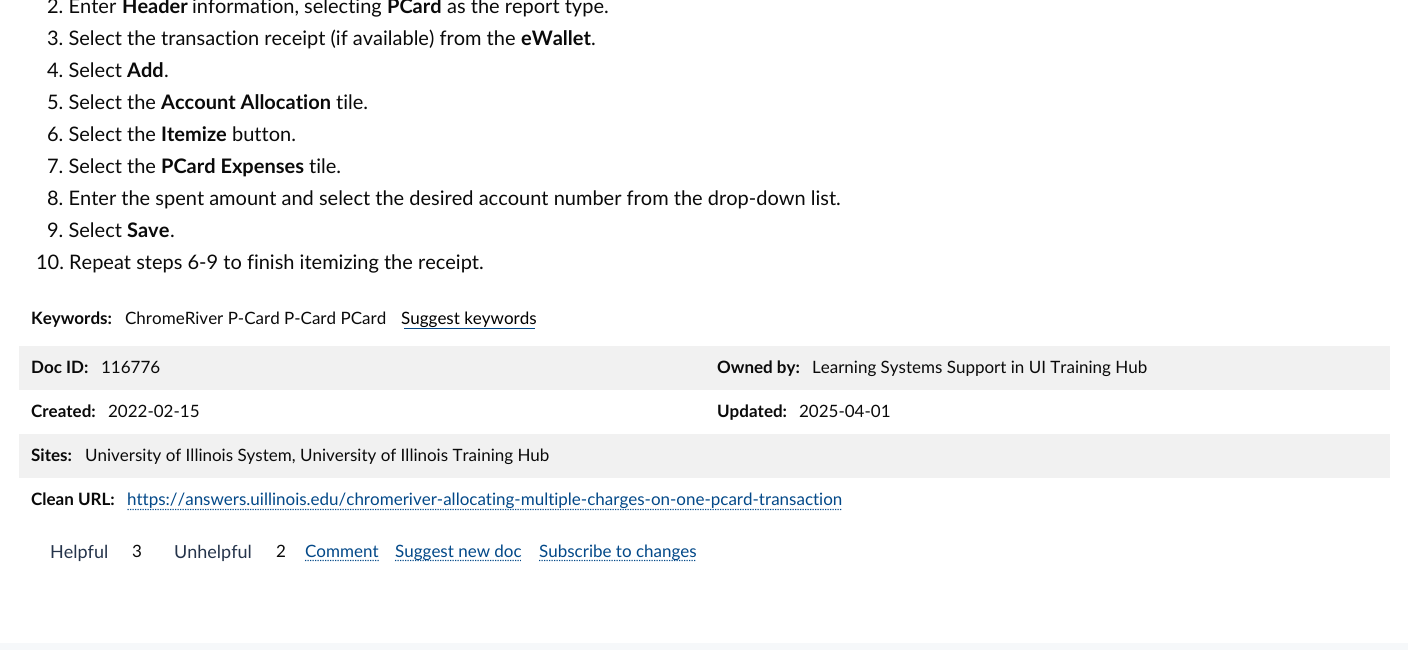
import math
import cairocffi as cairo

surface = cairo.ImageSurface(cairo.FORMAT_RGB24, 1408, 650)
ctx = cairo.Context(surface)
options = cairo.FontOptions()
options.set_hint_metrics(cairo.HINT_METRICS_OFF)
options.set_hint_style(cairo.HINT_STYLE_NONE)
ctx.set_font_options(options)
ctx.set_miter_limit(4)


def rgb(r, g, b):
    ctx.set_source_rgb(r / 255, g / 255, b / 255)


def face(family, size, italic, bold):
    ctx.select_font_face(family, cairo.FONT_SLANT_ITALIC if italic else cairo.FONT_SLANT_NORMAL, cairo.FONT_WEIGHT_BOLD if bold else cairo.FONT_WEIGHT_NORMAL)
    ctx.set_font_size(size)


def label(x, y, s):
    ctx.move_to(x, y)
    ctx.show_text(s)


def rect(x, y, w, h):
    ctx.rectangle(x, y, w, h)
    ctx.fill()


rgb(255, 255, 255)
ctx.paint()
face('Lato', 20, 0, 0)
rgb(10, 10, 10)
label(47, 13, '2. Enter')
face('Lato', 20, 0, 1)
label(122, 13, 'Header')
face('Lato', 20, 0, 0)
label(192, 13, 'information, selecting')
face('Lato', 20, 0, 1)
label(387, 13, 'PCard')
face('Lato', 20, 0, 0)
label(447, 13, 'as the report type.')
label(47, 45, '3. Select the transaction receipt (if available) from the')
face('Lato', 20, 0, 1)
label(521, 45, 'eWallet')
face('Lato', 20, 0, 0)
label(591, 45, '.')
label(47, 77, '4. Select')
face('Lato', 20, 0, 1)
label(127, 77, 'Add')
face('Lato', 20, 0, 0)
label(164, 77, '.')
label(47, 109, '5. Select the')
face('Lato', 20, 0, 1)
label(161, 109, 'Account Allocation')
face('Lato', 20, 0, 0)
label(336, 109, 'tile.')
label(47, 141, '6. Select the')
face('Lato', 20, 0, 1)
label(161, 141, 'Itemize')
face('Lato', 20, 0, 0)
label(232, 141, 'button.')
label(47, 173, '7. Select the')
face('Lato', 20, 0, 1)
label(161, 173, 'PCard Expenses')
face('Lato', 20, 0, 0)
label(309, 173, 'tile.')
label(47, 205, '8. Enter the spent amount and select the desired account number from the drop-down list.')
label(47, 237, '9. Select')
face('Lato', 20, 0, 1)
label(127, 237, 'Save')
face('Lato', 20, 0, 0)
label(170, 237, '.')
label(36, 269, '10. Repeat steps 6-9 to finish itemizing the receipt.')
face('Lato', 17, 0, 1)
label(31, 324, 'Keywords:')
face('Lato', 17, 0, 0)
label(125, 324, 'ChromeRiver P-Card P-Card PCard')
rgb(2, 72, 136)
rect(404, 328, 131, 1)
rgb(0, 0, 0)
label(401, 324, 'Suggest keywords')
rgb(241, 241, 241)
rect(19, 346, 1371, 44)
face('Lato', 17, 0, 1)
rgb(10, 10, 10)
label(31, 373, 'Doc ID:')
face('Lato', 17, 0, 0)
label(101, 373, '116776')
face('Lato', 17, 0, 1)
label(717, 373, 'Owned by:')
face('Lato', 17, 0, 0)
label(812, 373, 'Learning Systems Support in UI Training Hub')
face('Lato', 17, 0, 1)
label(31, 417, 'Created:')
face('Lato', 17, 0, 0)
label(108, 417, '2022-02-15')
face('Lato', 17, 0, 1)
label(717, 417, 'Updated:')
face('Lato', 17, 0, 0)
label(799, 417, '2025-04-01')
rgb(241, 241, 241)
rect(19, 434, 1371, 44)
face('Lato', 17, 0, 1)
rgb(10, 10, 10)
label(31, 461, 'Sites:')
face('Lato', 17, 0, 0)
label(85, 461, 'University of Illinois System, University of Illinois Training Hub')
face('Lato', 17, 0, 1)
label(31, 505, 'Clean URL:')
ctx.new_path()
ctx.move_to(127.5, 509.5)
ctx.line_to(842.5, 509.5)
rgb(2, 72, 136)
ctx.set_line_width(1.2)
ctx.set_dash([1.25, 1.25])
ctx.stroke()
face('Lato', 17, 0, 0)
label(127, 505, 'https://answers.uillinois.edu/chromeriver-allocating-multiple-charges-on-one-pcard-transaction')
face('Lato', 18, 0, 0)
rgb(37, 52, 75)
label(50, 558, 'Helpful')
face('Lato', 17, 0, 0)
rgb(10, 10, 10)
label(132, 557, '3')
face('Lato', 18, 0, 0)
rgb(37, 52, 75)
label(174, 558, 'Unhelpful')
face('Lato', 17, 0, 0)
rgb(10, 10, 10)
label(276, 557, '2')
rgb(2, 72, 136)
label(305, 557, 'Comment')
ctx.new_path()
ctx.move_to(305, 560.5)
ctx.line_to(379, 560.5)
ctx.stroke()
ctx.new_path()
ctx.move_to(395, 560.5)
ctx.line_to(521, 560.5)
ctx.stroke()
label(395, 557, 'Suggest new doc')
ctx.new_path()
ctx.move_to(539, 560.5)
ctx.line_to(696, 560.5)
ctx.stroke()
label(539, 557, 'Subscribe to changes')
rgb(246, 248, 250)
rect(0, 643, 1408, 7)
surface.write_to_png('render.png')
